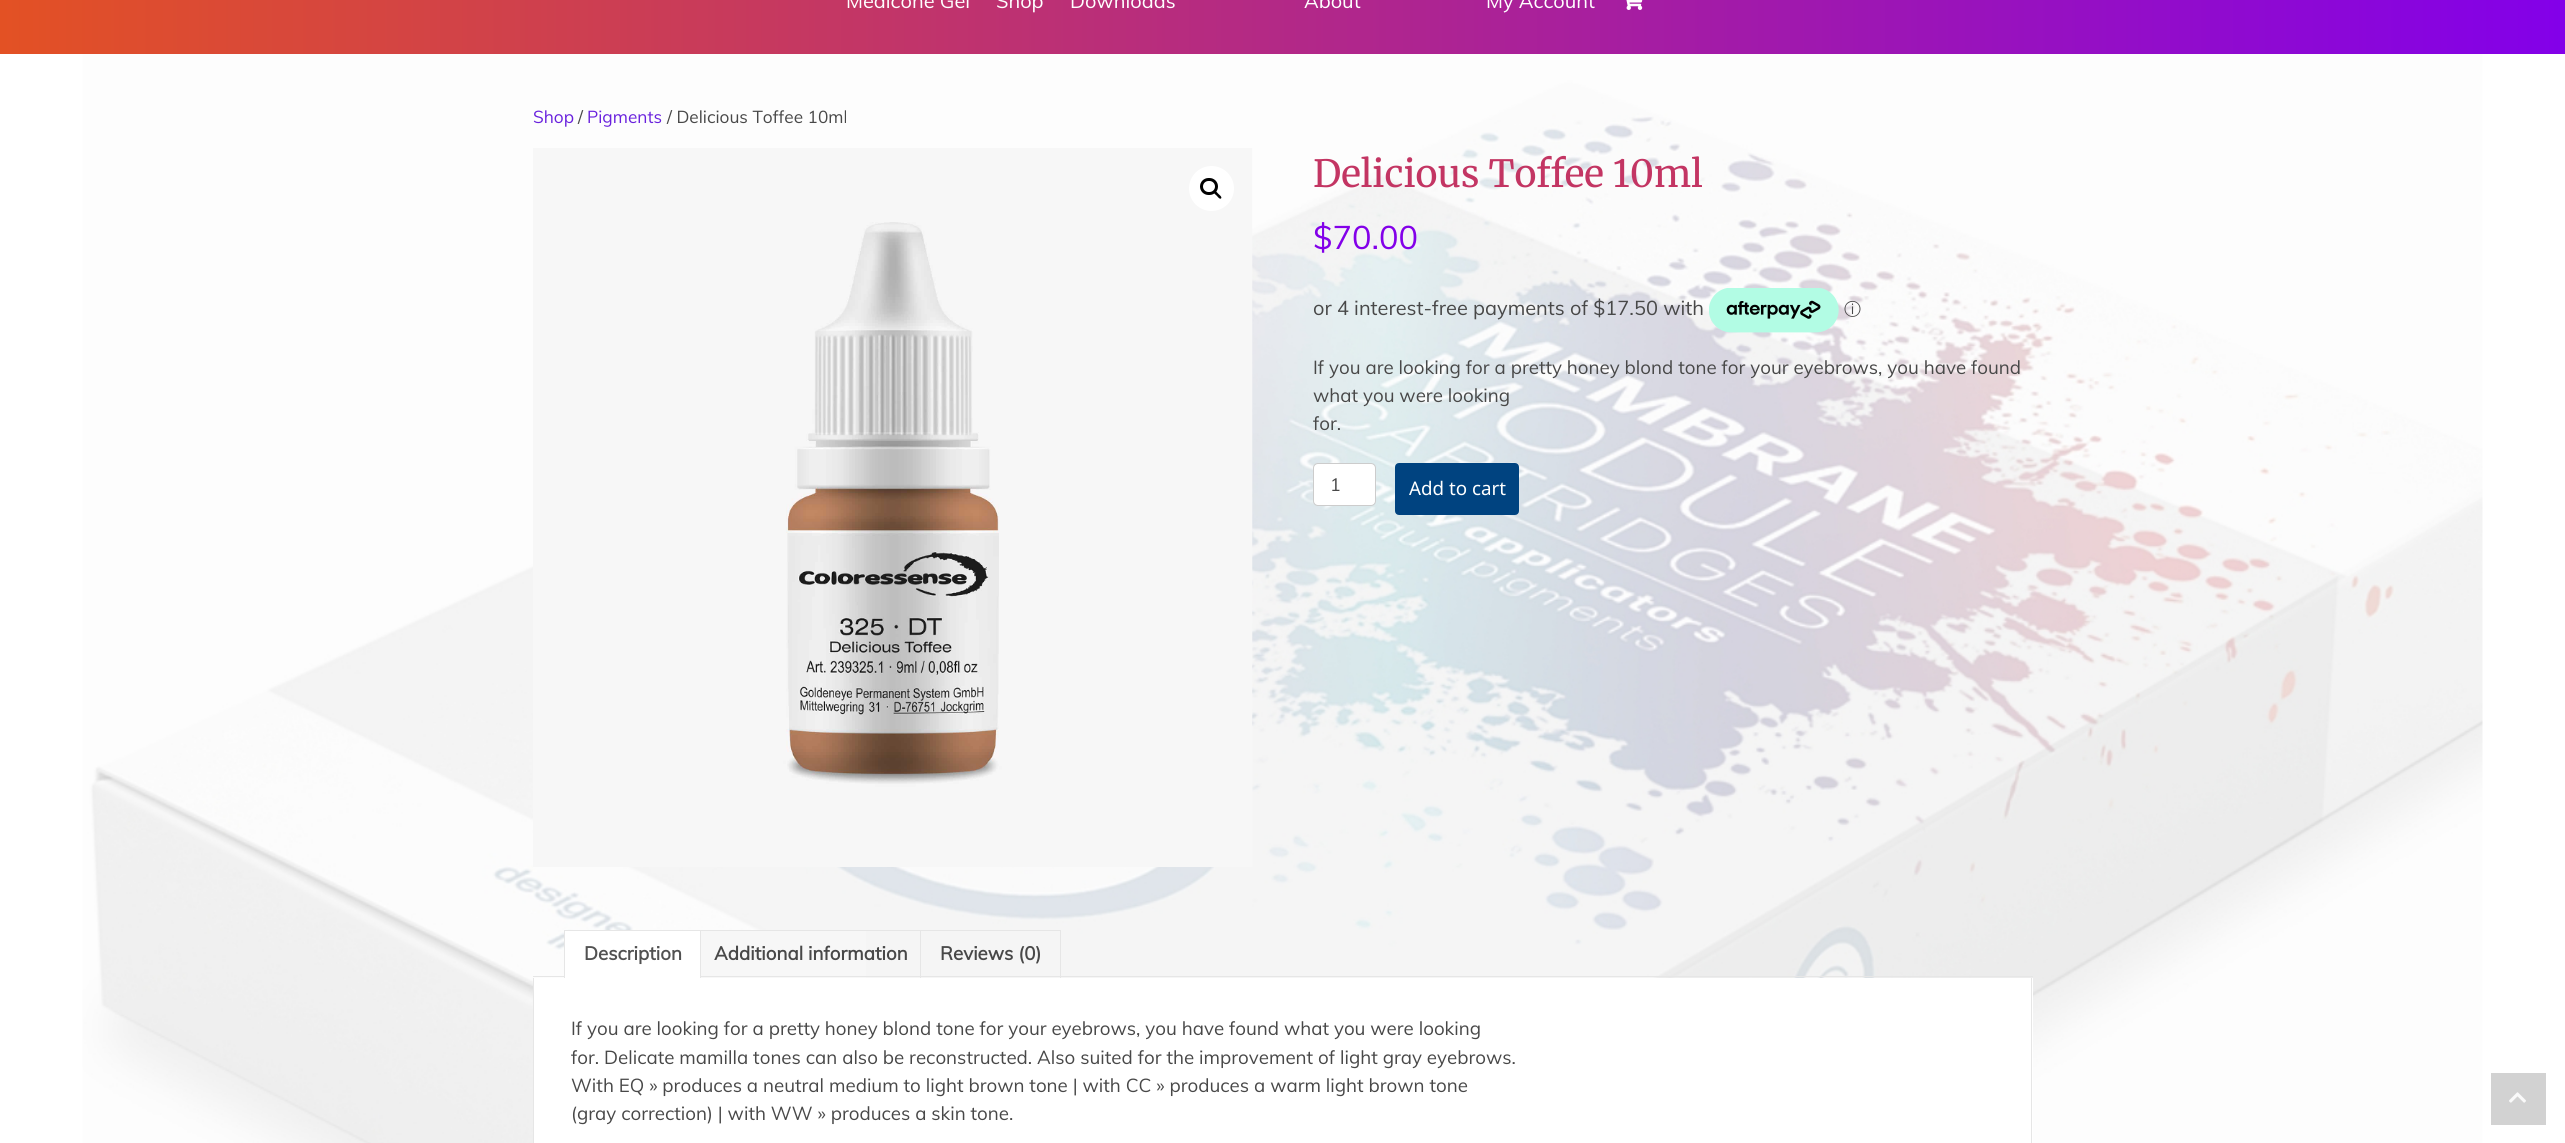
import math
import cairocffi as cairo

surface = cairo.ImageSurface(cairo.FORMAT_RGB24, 2565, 1143)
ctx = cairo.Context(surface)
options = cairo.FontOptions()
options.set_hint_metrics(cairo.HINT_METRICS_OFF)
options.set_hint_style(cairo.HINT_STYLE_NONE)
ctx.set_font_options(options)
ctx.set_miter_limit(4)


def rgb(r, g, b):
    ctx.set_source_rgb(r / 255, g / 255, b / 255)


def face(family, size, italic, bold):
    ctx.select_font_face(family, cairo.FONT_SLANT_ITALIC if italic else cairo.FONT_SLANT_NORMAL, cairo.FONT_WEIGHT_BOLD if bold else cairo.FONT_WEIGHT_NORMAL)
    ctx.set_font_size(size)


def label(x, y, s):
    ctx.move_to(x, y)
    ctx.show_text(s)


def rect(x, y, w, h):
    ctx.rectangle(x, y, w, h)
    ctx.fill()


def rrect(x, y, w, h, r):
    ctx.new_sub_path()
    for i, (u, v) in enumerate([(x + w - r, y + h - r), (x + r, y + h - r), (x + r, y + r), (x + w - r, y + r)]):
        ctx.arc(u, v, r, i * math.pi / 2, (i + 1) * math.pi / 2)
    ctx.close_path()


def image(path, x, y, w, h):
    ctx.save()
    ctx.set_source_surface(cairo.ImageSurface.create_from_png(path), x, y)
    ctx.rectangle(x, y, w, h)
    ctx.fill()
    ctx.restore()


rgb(255, 255, 255)
ctx.paint()
gradient = cairo.LinearGradient(0, -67, 2565, -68)
gradient.add_color_stop_rgba(0, 0.89, 0.318, 0.141, 1)
gradient.add_color_stop_rgba(1, 0.514, 0, 0.914, 1)
ctx.set_source(gradient)
rect(0, 0, 2565, 54)
face('Muli', 20, 0, 0)
rgb(255, 255, 255)
label(846, 8, 'Medicone Gel')
label(996, 8, 'Shop')
label(1070, 8, 'Downloads')
label(1304, 8, 'About')
label(1486, 8, 'My Account')
image('image0.png', 1626, 0, 17, 10)
image('image1.png', 82, 54, 2401, 1089)
face('Muli', 17.25, 0, 0)
rgb(105, 33, 221)
label(533, 123, 'Shop')
rgb(72, 72, 72)
label(578, 123, '/')
rgb(105, 33, 221)
label(587, 123, 'Pigments')
rgb(72, 72, 72)
label(667, 123, '/ Delicious Toffee 10ml')
image('image2.png', 533, 148, 720, 719)
rgb(255, 255, 255)
ctx.arc(1211.5, 188.5, 22.5, 0, 2 * math.pi)
ctx.fill()
rrect(1201.5, 179.5, 15, 14, 7)
rgb(0, 0, 0)
ctx.set_line_width(3)
ctx.stroke()
ctx.new_path()
ctx.move_to(1214, 191)
ctx.curve_to(1215.5, 190, 1217.5, 193, 1218.5, 194)
ctx.curve_to(1219, 194.5, 1222.5, 197, 1221, 198.5)
ctx.curve_to(1219.5, 199.5, 1217.5, 196.5, 1216.5, 195.5)
ctx.curve_to(1216, 195, 1212.5, 192.5, 1214, 191)
ctx.close_path()
ctx.fill()
face('Merriweather Light', 37.5, 0, 0)
rgb(195, 53, 99)
label(1313, 187, 'Delicious Toffee 10ml')
face('Muli', 32.5, 0, 0)
rgb(131, 0, 233)
label(1313, 249, '$70.00')
face('Muli', 20, 0, 0)
rgb(72, 72, 72)
label(1313, 315, 'or 4 interest-free payments of $17.50 with')
image('image3.png', 1709, 288, 130, 45)
face('WenQuanYi Zen Hei Medium', 17, 0, 0)
label(1844, 315, 'ⓘ')
face('Muli', 18.75, 0, 0)
label(1313, 374, 'If you are looking for a pretty honey blond tone for your eyebrows, you have found')
label(1313, 402, 'what you were looking')
label(1313, 430, 'for.')
rgb(255, 255, 255)
rrect(1313.5, 463.5, 62, 42, 4.5)
ctx.fill_preserve()
rgb(204, 204, 204)
ctx.set_line_width(1)
ctx.stroke()
face('Muli', 18, 0, 0)
rgb(72, 72, 72)
label(1330, 491, '1')
rgb(0, 67, 128)
rrect(1396.5, 464.5, 121, 49, 2.5)
ctx.fill_preserve()
ctx.set_line_width(3)
ctx.stroke()
face('Noto Sans', 18.75, 0, 0)
rgb(255, 255, 255)
label(1409, 495, 'Add to cart')
rgb(247, 247, 247)
rect(701, 931, 165, 47)
rgb(230, 230, 230)
rect(564, 930, 497, 1)
rect(1060, 930, 1, 48)
rect(920, 930, 1, 48)
rect(533, 976, 1500, 1)
rgb(255, 255, 255)
rect(565, 931, 135, 47)
rgb(230, 230, 230)
rect(700, 930, 1, 48)
rect(564, 930, 1, 48)
face('Muli', 18.75, 0, 1)
rgb(81, 81, 81)
label(584, 960, 'Description')
rgb(72, 72, 72)
label(714, 960, 'Additional information')
label(940, 960, 'Reviews (0)')
rgb(255, 255, 255)
rect(534, 978, 1499, 165)
rgb(230, 230, 230)
rect(2031, 978, 1, 165)
rect(533, 978, 1, 165)
face('Muli', 18.75, 0, 0)
rgb(72, 72, 72)
label(571, 1035, 'If you are looking for a pretty honey blond tone for your eyebrows, you have found what you were looking')
label(571, 1064, 'for. Delicate mamilla tones can also be reconstructed. Also suited for the improvement of light gray eyebrows.')
label(571, 1092, 'With EQ » produces a neutral medium to light brown tone | with CC » produces a warm light brown tone')
label(571, 1120, '(gray correction) | with WW » produces a skin tone.')
rgb(210, 210, 210)
rect(2491, 1073, 55, 52)
image('image4.png', 2509, 1092, 17, 11)
surface.write_to_png('render.png')
